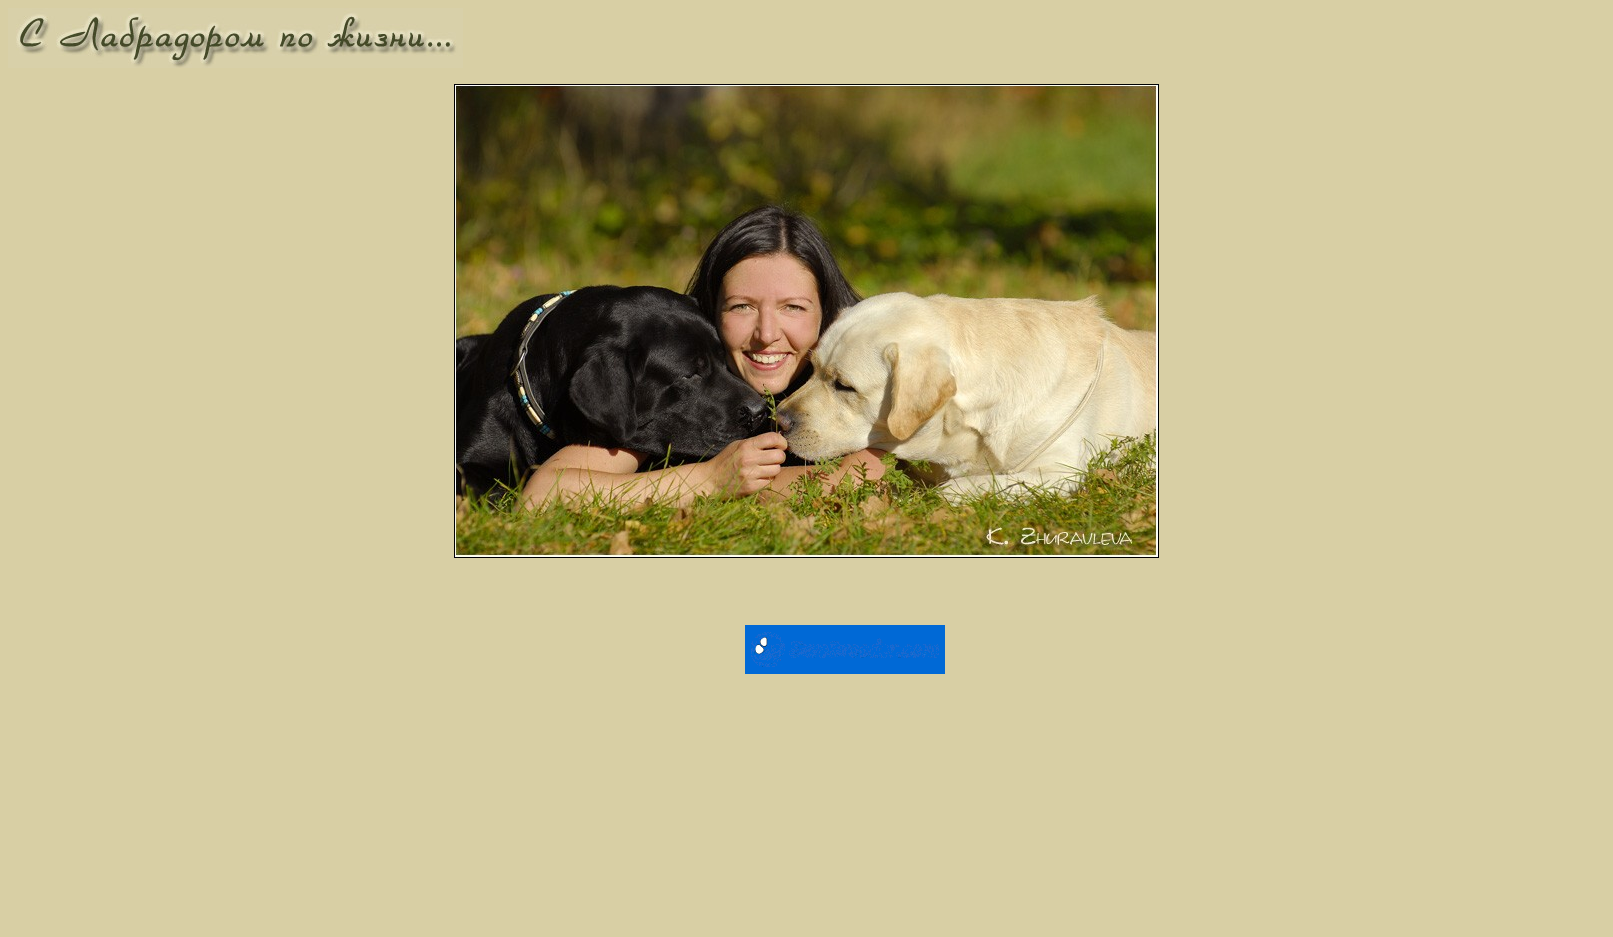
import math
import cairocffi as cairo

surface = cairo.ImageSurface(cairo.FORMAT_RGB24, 1613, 937)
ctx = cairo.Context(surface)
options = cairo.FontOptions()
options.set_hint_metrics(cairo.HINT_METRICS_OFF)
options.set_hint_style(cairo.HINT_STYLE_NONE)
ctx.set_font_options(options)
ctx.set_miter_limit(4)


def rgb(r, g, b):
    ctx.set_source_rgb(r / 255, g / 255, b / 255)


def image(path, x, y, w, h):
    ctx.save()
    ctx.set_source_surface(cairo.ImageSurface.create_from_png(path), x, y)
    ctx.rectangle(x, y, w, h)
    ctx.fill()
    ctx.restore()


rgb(216, 207, 164)
ctx.paint()
image('image0.png', 8, 8, 455, 60)
image('image1.png', 454, 84, 705, 474)
image('image2.png', 745, 625, 200, 49)
surface.write_to_png('render.png')
